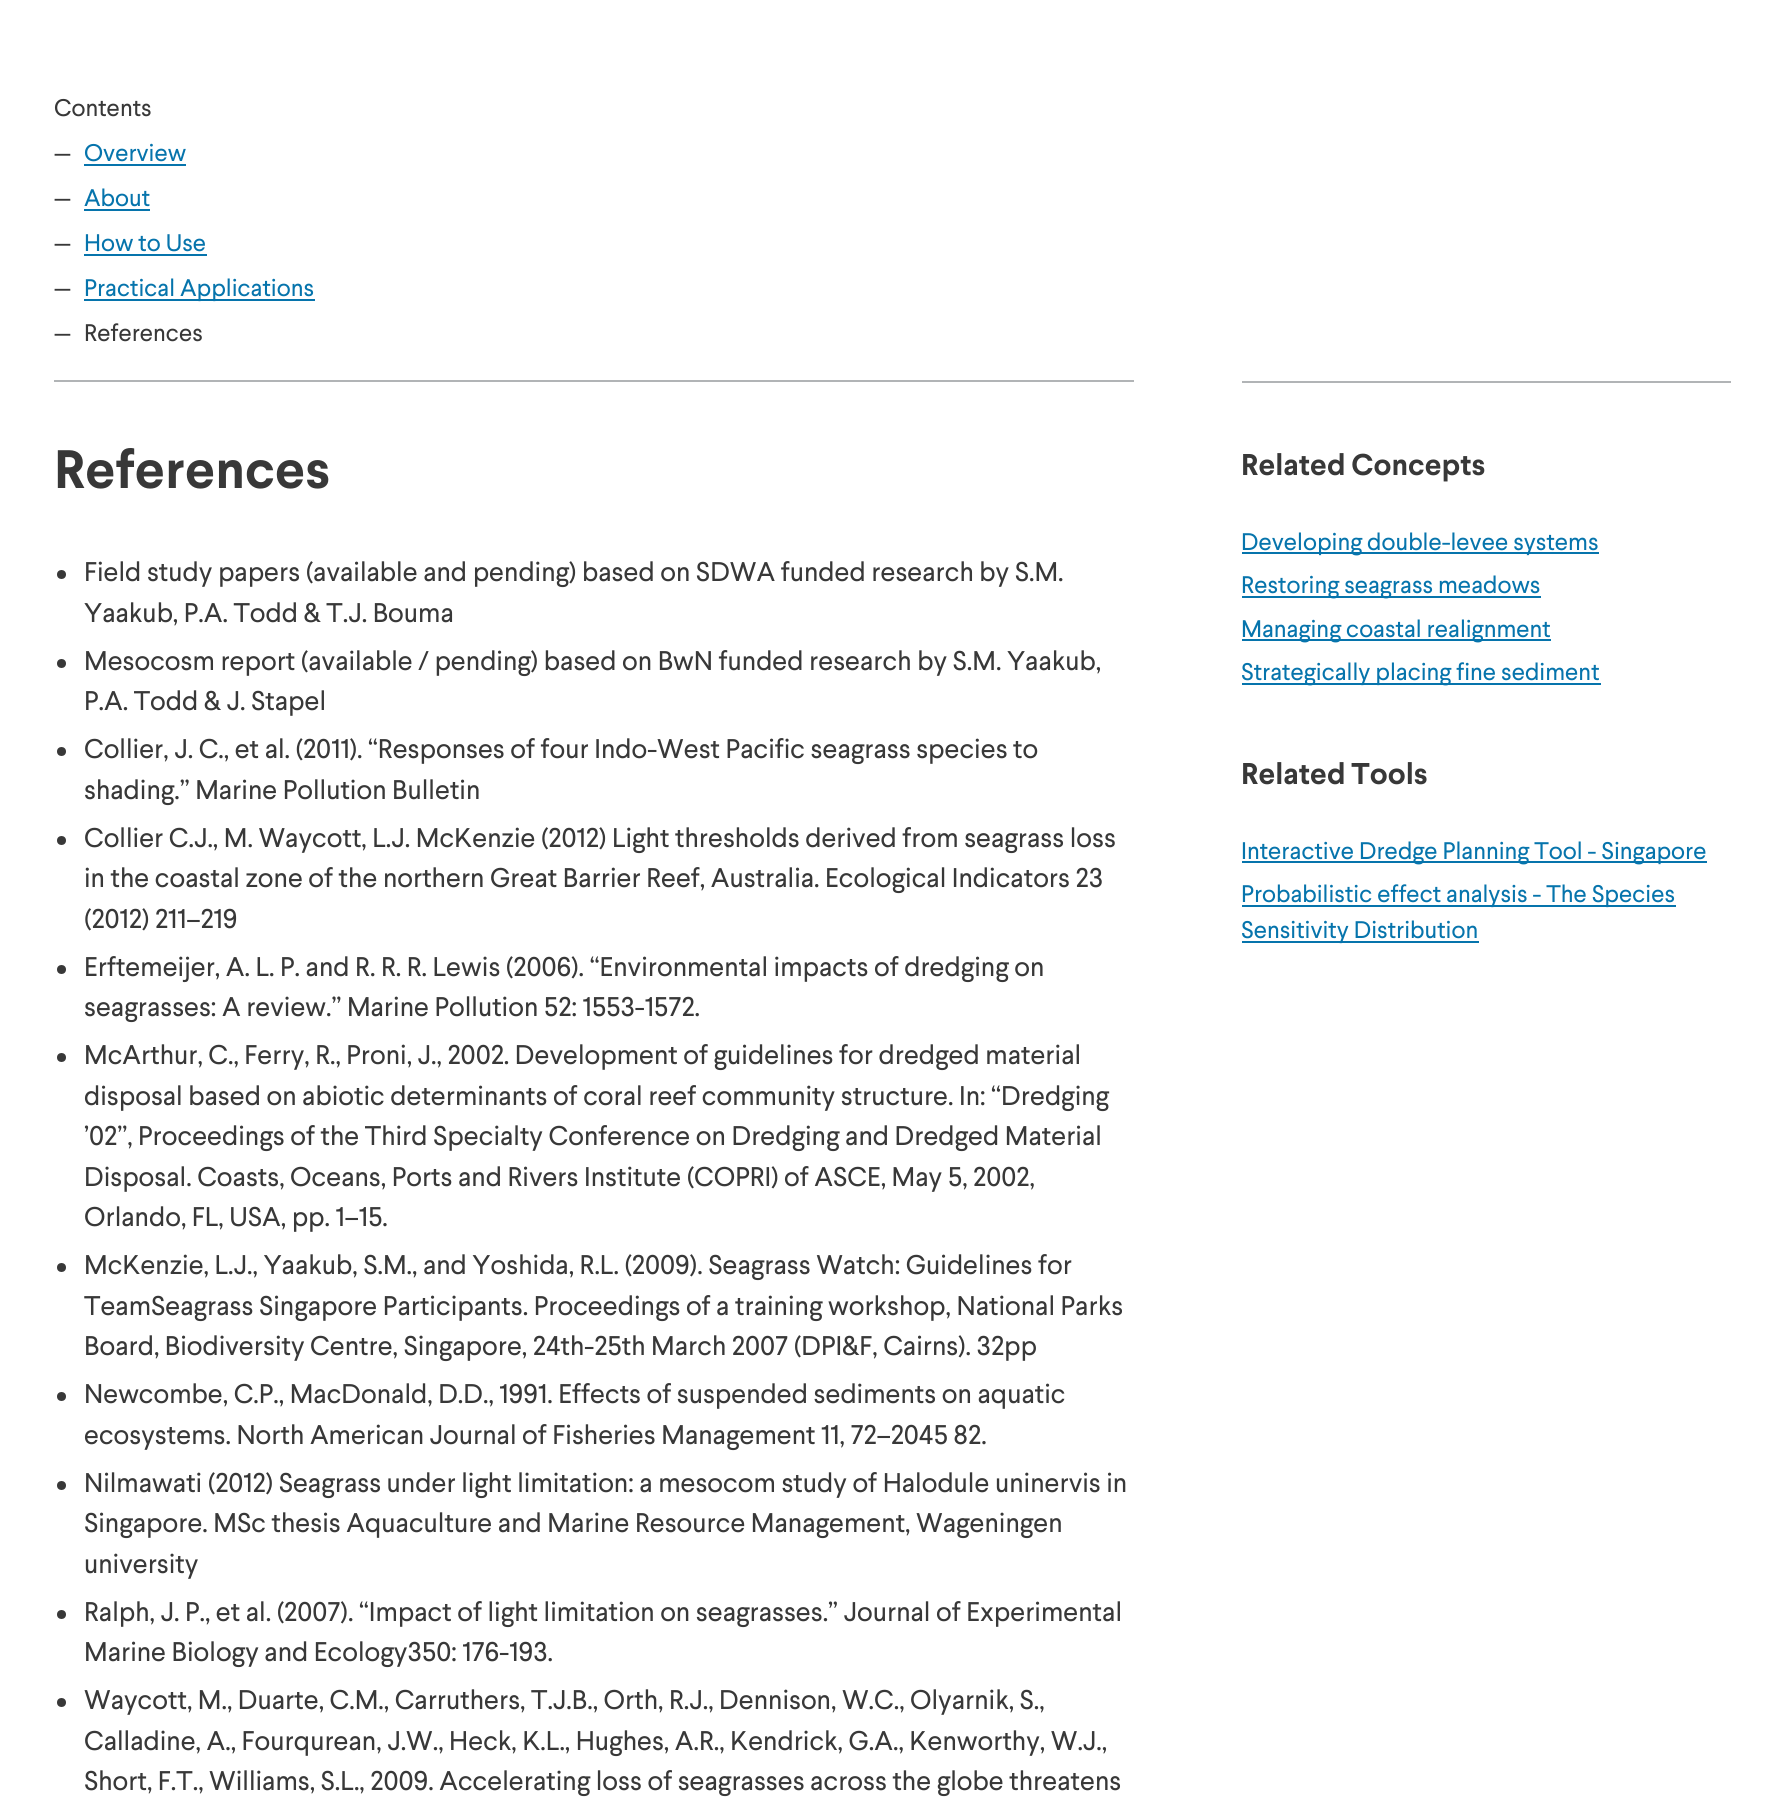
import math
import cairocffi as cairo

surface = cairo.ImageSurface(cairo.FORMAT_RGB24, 1783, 1809)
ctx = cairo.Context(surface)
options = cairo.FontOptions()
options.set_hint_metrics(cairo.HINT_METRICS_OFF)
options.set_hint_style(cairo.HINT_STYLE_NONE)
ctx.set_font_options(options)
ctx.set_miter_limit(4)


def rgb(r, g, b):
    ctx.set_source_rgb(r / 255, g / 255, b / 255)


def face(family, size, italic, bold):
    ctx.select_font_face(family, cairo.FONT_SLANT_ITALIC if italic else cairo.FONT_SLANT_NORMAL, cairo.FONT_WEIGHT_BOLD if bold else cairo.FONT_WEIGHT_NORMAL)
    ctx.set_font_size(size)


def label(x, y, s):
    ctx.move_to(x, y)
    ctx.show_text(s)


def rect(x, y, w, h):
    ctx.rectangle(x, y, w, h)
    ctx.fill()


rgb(255, 255, 255)
ctx.paint()
rgb(177, 180, 182)
rect(54, 380, 1080, 2)
face('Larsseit', 24, 0, 0)
rgb(56, 56, 56)
label(54, 116, 'Contents')
label(54, 161, '—')
rgb(6, 116, 172)
label(84, 161, 'Overview')
rect(84, 164, 102, 2)
rgb(56, 56, 56)
label(54, 206, '—')
rgb(6, 116, 172)
label(84, 206, 'About')
rect(84, 209, 66, 2)
rgb(56, 56, 56)
label(54, 251, '—')
rgb(6, 116, 172)
label(84, 251, 'How to Use')
rect(84, 254, 123, 2)
rgb(56, 56, 56)
label(54, 296, '—')
rgb(6, 116, 172)
rect(84, 299, 231, 2)
label(84, 296, 'Practical Applications')
rgb(56, 56, 56)
label(54, 341, '—')
label(84, 341, 'References')
face('Larsseit', 54, 0, 1)
label(54, 488, 'References')
ctx.new_path()
ctx.arc(61.5, 574.5, 4.5, 0, 2 * math.pi)
ctx.fill()
face('Larsseit', 27, 0, 0)
label(84, 581, 'Field study papers (available and pending) based on SDWA funded research by S.M.')
label(84, 622, 'Yaakub, P.A. Todd & T.J. Bouma')
ctx.new_path()
ctx.arc(61.5, 663.5, 4.5, 0, 2 * math.pi)
ctx.fill()
label(84, 670, 'Mesocosm report (available / pending) based on BwN funded research by S.M. Yaakub,')
label(84, 710, 'P.A. Todd & J. Stapel')
ctx.new_path()
ctx.arc(61.5, 751.5, 4.5, 0, 2 * math.pi)
ctx.fill()
label(84, 758, 'Collier, J. C., et al. (2011). “Responses of four Indo-West Pacific seagrass species to')
label(84, 799, 'shading.” Marine Pollution Bulletin')
ctx.new_path()
ctx.arc(61.5, 840.5, 4.5, 0, 2 * math.pi)
ctx.fill()
label(84, 847, 'Collier C.J., M. Waycott, L.J. McKenzie (2012) Light thresholds derived from seagrass loss')
label(84, 887, 'in the coastal zone of the northern Great Barrier Reef, Australia. Ecological Indicators 23')
label(84, 928, '(2012) 211–219')
ctx.new_path()
ctx.arc(61.5, 969.5, 4.5, 0, 2 * math.pi)
ctx.fill()
label(84, 976, 'Erftemeijer, A. L. P. and R. R. R. Lewis (2006). “Environmental impacts of dredging on')
label(84, 1016, 'seagrasses: A review.” Marine Pollution 52: 1553-1572.')
ctx.new_path()
ctx.arc(61.5, 1057.5, 4.5, 0, 2 * math.pi)
ctx.fill()
label(84, 1064, 'McArthur, C., Ferry, R., Proni, J., 2002. Development of guidelines for dredged material')
label(84, 1105, 'disposal based on abiotic determinants of coral reef community structure. In: ‘‘Dredging')
label(84, 1145, '’02’’, Proceedings of the Third Specialty Conference on Dredging and Dredged Material')
label(84, 1186, 'Disposal. Coasts, Oceans, Ports and Rivers Institute (COPRI) of ASCE, May 5, 2002,')
label(84, 1226, 'Orlando, FL, USA, pp. 1–15.')
ctx.new_path()
ctx.arc(61.5, 1267.5, 4.5, 0, 2 * math.pi)
ctx.fill()
label(84, 1274, 'McKenzie, L.J., Yaakub, S.M., and Yoshida, R.L. (2009). Seagrass Watch: Guidelines for')
label(84, 1315, 'TeamSeagrass Singapore Participants. Proceedings of a training workshop, National Parks')
label(84, 1355, 'Board, Biodiversity Centre, Singapore, 24th-25th March 2007 (DPI&F, Cairns). 32pp')
ctx.new_path()
ctx.arc(61.5, 1396.5, 4.5, 0, 2 * math.pi)
ctx.fill()
label(84, 1403, 'Newcombe, C.P., MacDonald, D.D., 1991. Effects of suspended sediments on aquatic')
label(84, 1444, 'ecosystems. North American Journal of Fisheries Management 11, 72–2045 82.')
ctx.new_path()
ctx.arc(61.5, 1485.5, 4.5, 0, 2 * math.pi)
ctx.fill()
label(84, 1492, 'Nilmawati (2012) Seagrass under light limitation: a mesocom study of Halodule uninervis in')
label(84, 1532, 'Singapore. MSc thesis Aquaculture and Marine Resource Management, Wageningen')
label(84, 1573, 'university')
ctx.new_path()
ctx.arc(61.5, 1614.5, 4.5, 0, 2 * math.pi)
ctx.fill()
label(84, 1621, 'Ralph, J. P., et al. (2007). “Impact of light limitation on seagrasses.” Journal of Experimental')
label(84, 1661, 'Marine Biology and Ecology350: 176-193.')
ctx.new_path()
ctx.arc(61.5, 1702.5, 4.5, 0, 2 * math.pi)
ctx.fill()
label(84, 1709, 'Waycott, M., Duarte, C.M., Carruthers, T.J.B., Orth, R.J., Dennison, W.C., Olyarnik, S.,')
label(84, 1750, 'Calladine, A., Fourqurean, J.W., Heck, K.L., Hughes, A.R., Kendrick, G.A., Kenworthy, W.J.,')
label(84, 1790, 'Short, F.T., Williams, S.L., 2009. Accelerating loss of seagrasses across the globe threatens')
rgb(177, 180, 182)
rect(1242, 381, 489, 2)
face('Larsseit', 30, 0, 1)
rgb(56, 56, 56)
label(1241, 475, 'Related Concepts')
rgb(6, 116, 172)
rect(1242, 552, 357, 2)
face('Larsseit', 24, 0, 0)
label(1241, 550, 'Developing double-levee systems')
rect(1242, 596, 299, 2)
label(1241, 593, 'Restoring seagrass meadows')
rect(1242, 639, 309, 2)
label(1241, 637, 'Managing coastal realignment')
rect(1242, 683, 359, 2)
label(1241, 680, 'Strategically placing fine sediment')
face('Larsseit', 30, 0, 1)
rgb(56, 56, 56)
label(1241, 784, 'Related Tools')
rgb(6, 116, 172)
rect(1242, 861, 465, 2)
face('Larsseit', 24, 0, 0)
label(1241, 859, 'Interactive Dredge Planning Tool - Singapore')
rect(1242, 905, 434, 2)
label(1241, 902, 'Probabilistic effect analysis - The Species')
rect(1242, 941, 237, 2)
label(1241, 938, 'Sensitivity Distribution')
surface.write_to_png('render.png')
